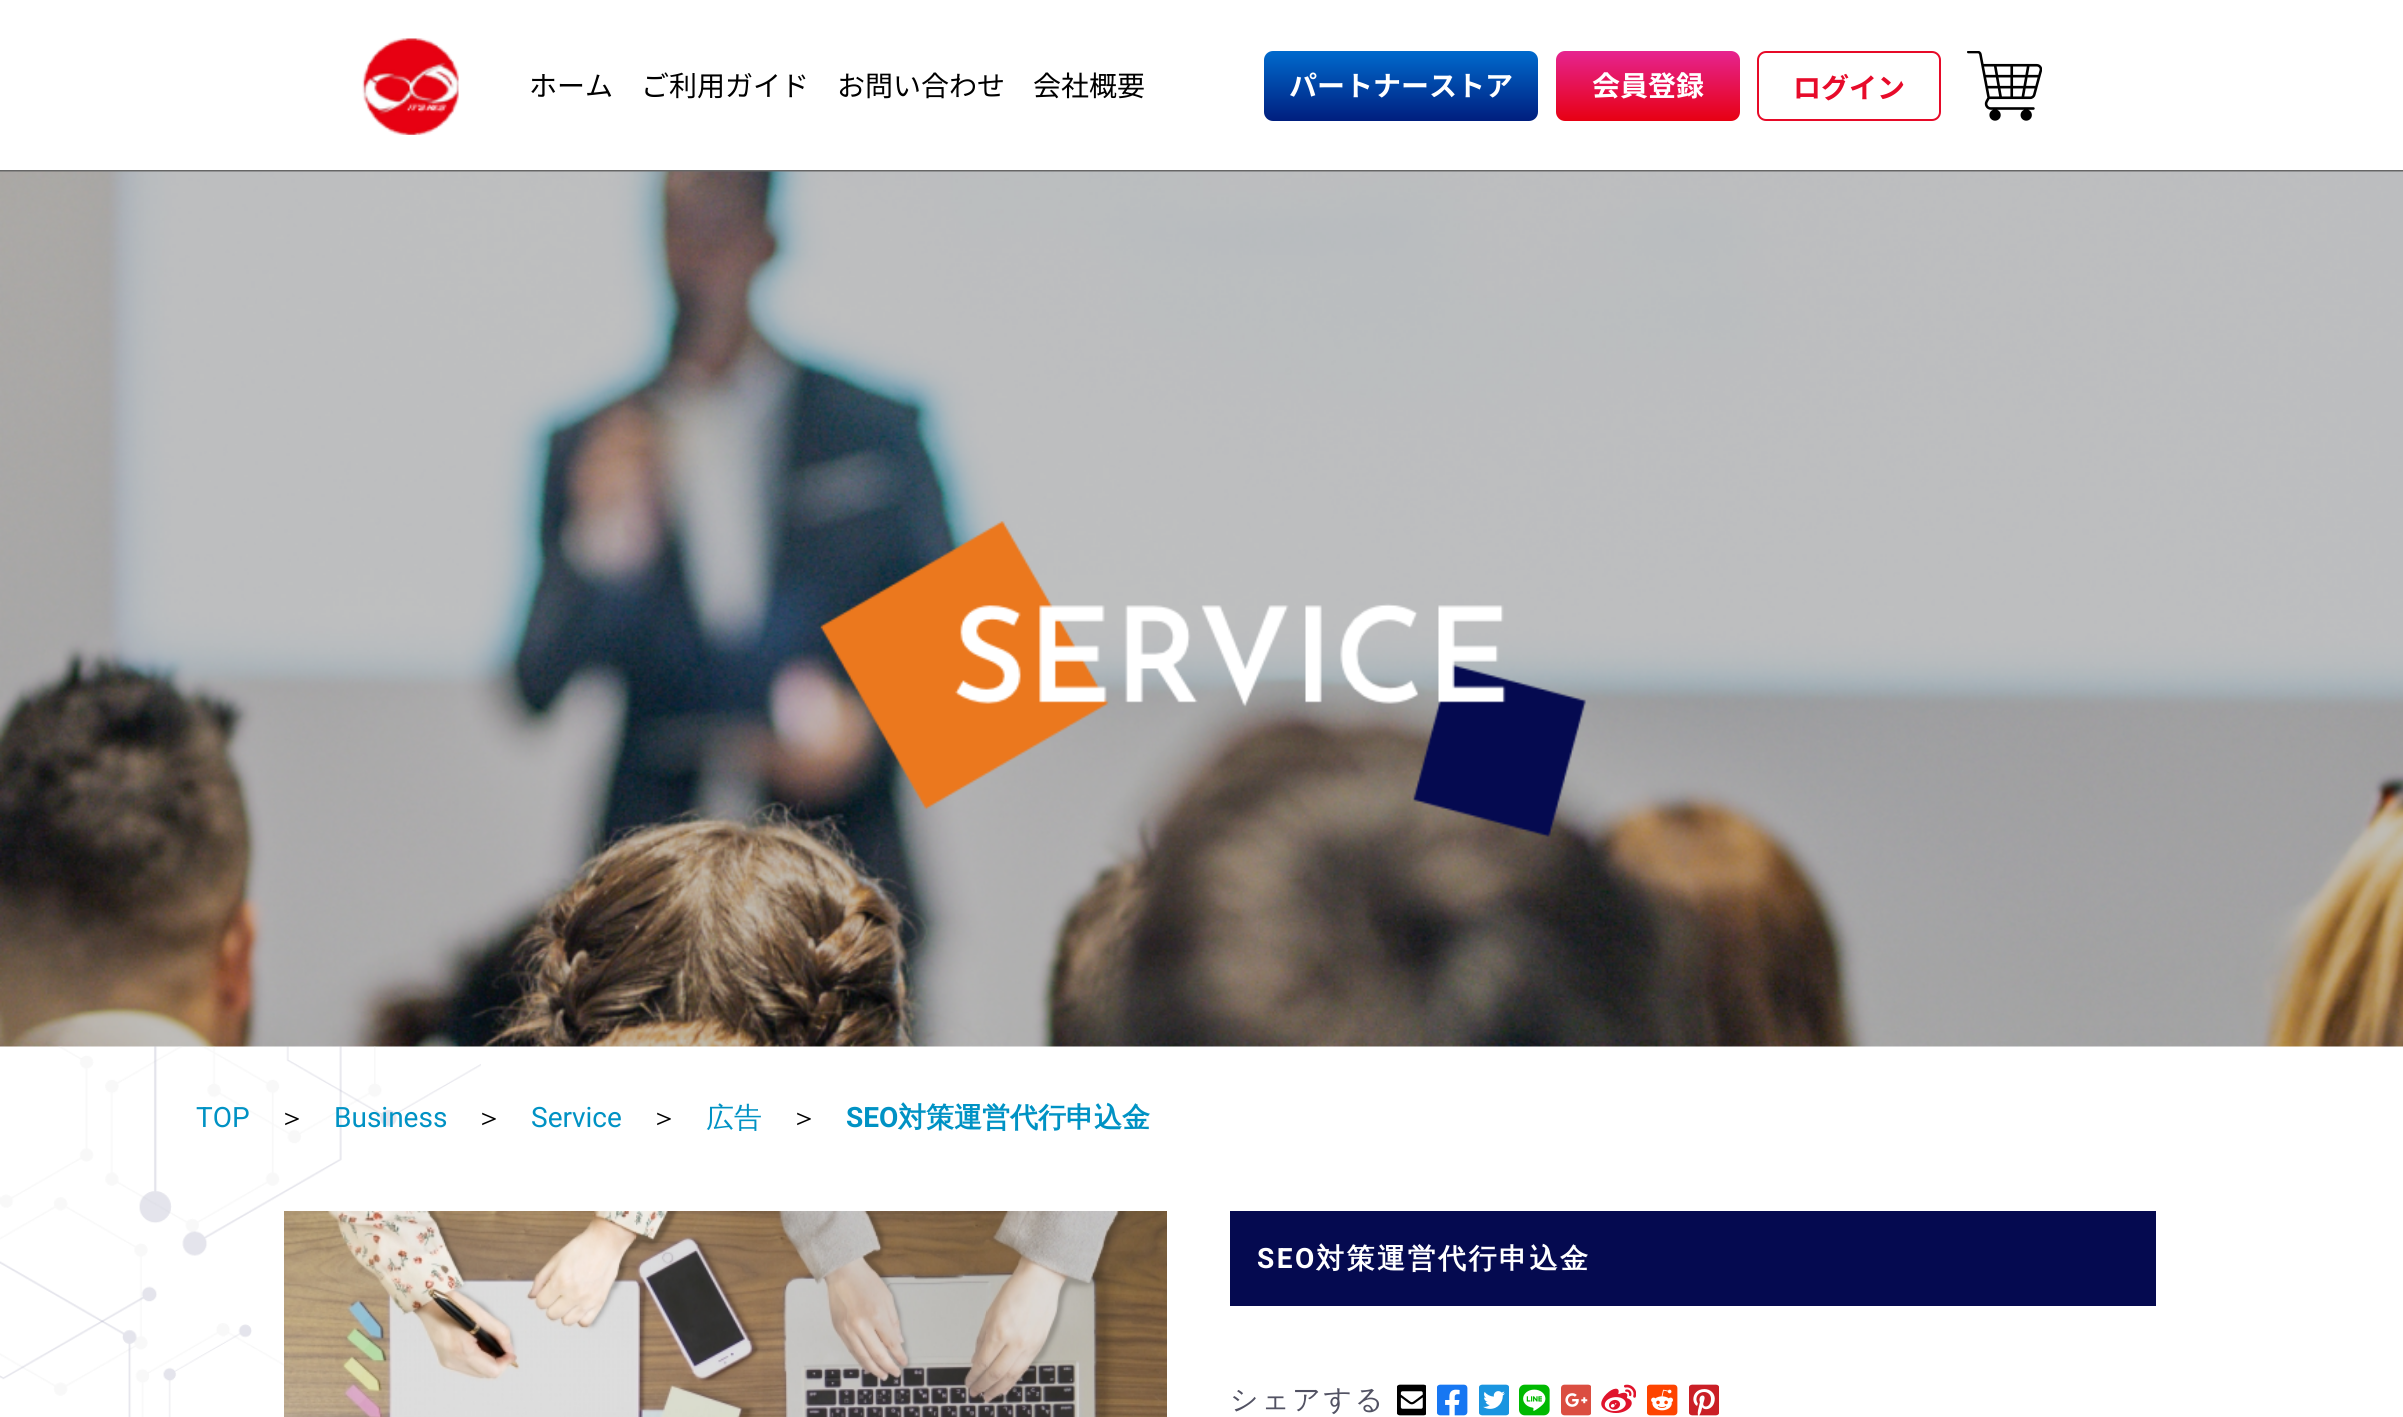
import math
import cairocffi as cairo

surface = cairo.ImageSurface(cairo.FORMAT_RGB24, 2403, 1417)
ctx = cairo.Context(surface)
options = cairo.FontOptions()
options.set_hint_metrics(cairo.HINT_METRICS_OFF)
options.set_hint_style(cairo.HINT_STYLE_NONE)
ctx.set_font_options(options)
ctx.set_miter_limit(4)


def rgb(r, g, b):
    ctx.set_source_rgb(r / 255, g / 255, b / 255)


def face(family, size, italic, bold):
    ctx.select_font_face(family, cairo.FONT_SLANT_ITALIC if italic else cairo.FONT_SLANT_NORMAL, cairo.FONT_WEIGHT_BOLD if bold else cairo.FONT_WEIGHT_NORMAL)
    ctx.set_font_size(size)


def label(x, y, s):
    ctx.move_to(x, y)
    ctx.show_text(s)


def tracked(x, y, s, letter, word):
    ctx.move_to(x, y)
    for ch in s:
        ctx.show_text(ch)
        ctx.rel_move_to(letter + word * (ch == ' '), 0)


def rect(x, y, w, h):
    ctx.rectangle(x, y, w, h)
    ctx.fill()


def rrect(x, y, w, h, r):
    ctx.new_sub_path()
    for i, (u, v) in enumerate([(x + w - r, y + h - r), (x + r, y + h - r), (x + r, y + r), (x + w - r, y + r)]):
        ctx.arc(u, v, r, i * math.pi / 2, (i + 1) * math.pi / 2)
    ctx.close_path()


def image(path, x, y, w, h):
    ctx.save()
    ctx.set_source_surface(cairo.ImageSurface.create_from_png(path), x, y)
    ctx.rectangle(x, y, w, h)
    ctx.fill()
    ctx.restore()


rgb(255, 255, 255)
ctx.paint()
rgb(102, 102, 102)
rect(0, 170, 2403, 2)
image('image0.png', 362, 38, 97, 97)
face('Noto Sans JP', 28, 0, 0)
rgb(0, 0, 0)
label(529, 96, 'ホーム')
label(641, 96, 'ご利用ガイド')
label(837, 96, 'お問い合わせ')
label(1033, 96, '会社概要')
gradient = cairo.LinearGradient(1401, 121, 1401, 51)
gradient.add_color_stop_rgba(0, 0, 0.118, 0.494, 1)
gradient.add_color_stop_rgba(1, 0, 0.416, 0.804, 1)
ctx.set_source(gradient)
rrect(1264, 51, 274, 70, 9)
ctx.fill()
face('Noto Sans JP', 28, 0, 1)
rgb(255, 255, 255)
label(1289, 96, 'パートナーストア')
gradient = cairo.LinearGradient(1648, 121, 1648, 51)
gradient.add_color_stop_rgba(0, 0.906, 0, 0.071, 1)
gradient.add_color_stop_rgba(1, 0.902, 0.141, 0.565, 1)
ctx.set_source(gradient)
rrect(1556, 51, 184, 70, 9)
ctx.fill()
rgb(255, 255, 255)
label(1592, 96, '会員登録')
rrect(1758, 52, 182, 68, 8)
rgb(231, 10, 40)
ctx.stroke()
rgb(231, 11, 42)
label(1793, 98, 'ログイン')
image('image1.png', 1967, 51, 75, 70)
image('image2.png', 0, 171, 2403, 876)
image('image3.png', 820, 521, 766, 316)
image('image4.png', 0, 1046, 481, 371)
face('Roboto', 28, 0, 0)
rgb(0, 146, 196)
label(196, 1127, 'TOP')
face('WenQuanYi Zen Hei Medium', 28, 0, 0)
rgb(0, 0, 0)
label(278, 1127, '＞')
face('Roboto', 28, 0, 0)
rgb(0, 146, 196)
label(334, 1127, 'Business')
face('WenQuanYi Zen Hei Medium', 28, 0, 0)
rgb(0, 0, 0)
label(475, 1127, '＞')
face('Roboto', 28, 0, 0)
rgb(0, 146, 196)
label(531, 1127, 'Service')
face('WenQuanYi Zen Hei Medium', 28, 0, 0)
rgb(0, 0, 0)
label(650, 1127, '＞')
rgb(0, 146, 196)
label(706, 1127, '広告')
rgb(0, 0, 0)
label(790, 1127, '＞')
face('Roboto', 28, 0, 1)
rgb(0, 146, 196)
label(846, 1127, 'SEO')
face('WenQuanYi Zen Hei', 28, 0, 1)
label(898, 1127, '対策運営代行申込金')
image('image5.png', 284, 1211, 883, 206)
rgb(5, 10, 80)
rect(1230, 1211, 926, 95)
face('Roboto', 28, 0, 1)
rgb(255, 255, 255)
tracked(1257, 1268, 'SEO', 2.5, 0)
face('WenQuanYi Zen Hei', 28, 0, 1)
tracked(1316, 1268, '対策運営代行申込金', 2.5, 0)
face('WenQuanYi Zen Hei Medium', 28, 0, 0)
rgb(82, 82, 99)
tracked(1230, 1409, 'シェアする', 2.5, 0)
image('image6.png', 1397, 1384, 29, 32)
image('image7.png', 1437, 1384, 31, 32)
image('image8.png', 1479, 1384, 30, 32)
image('image9.png', 1519, 1384, 31, 32)
image('image10.png', 1561, 1384, 30, 32)
image('image11.png', 1601, 1384, 35, 29)
image('image12.png', 1647, 1384, 31, 32)
image('image13.png', 1689, 1384, 30, 32)
surface.write_to_png('render.png')
